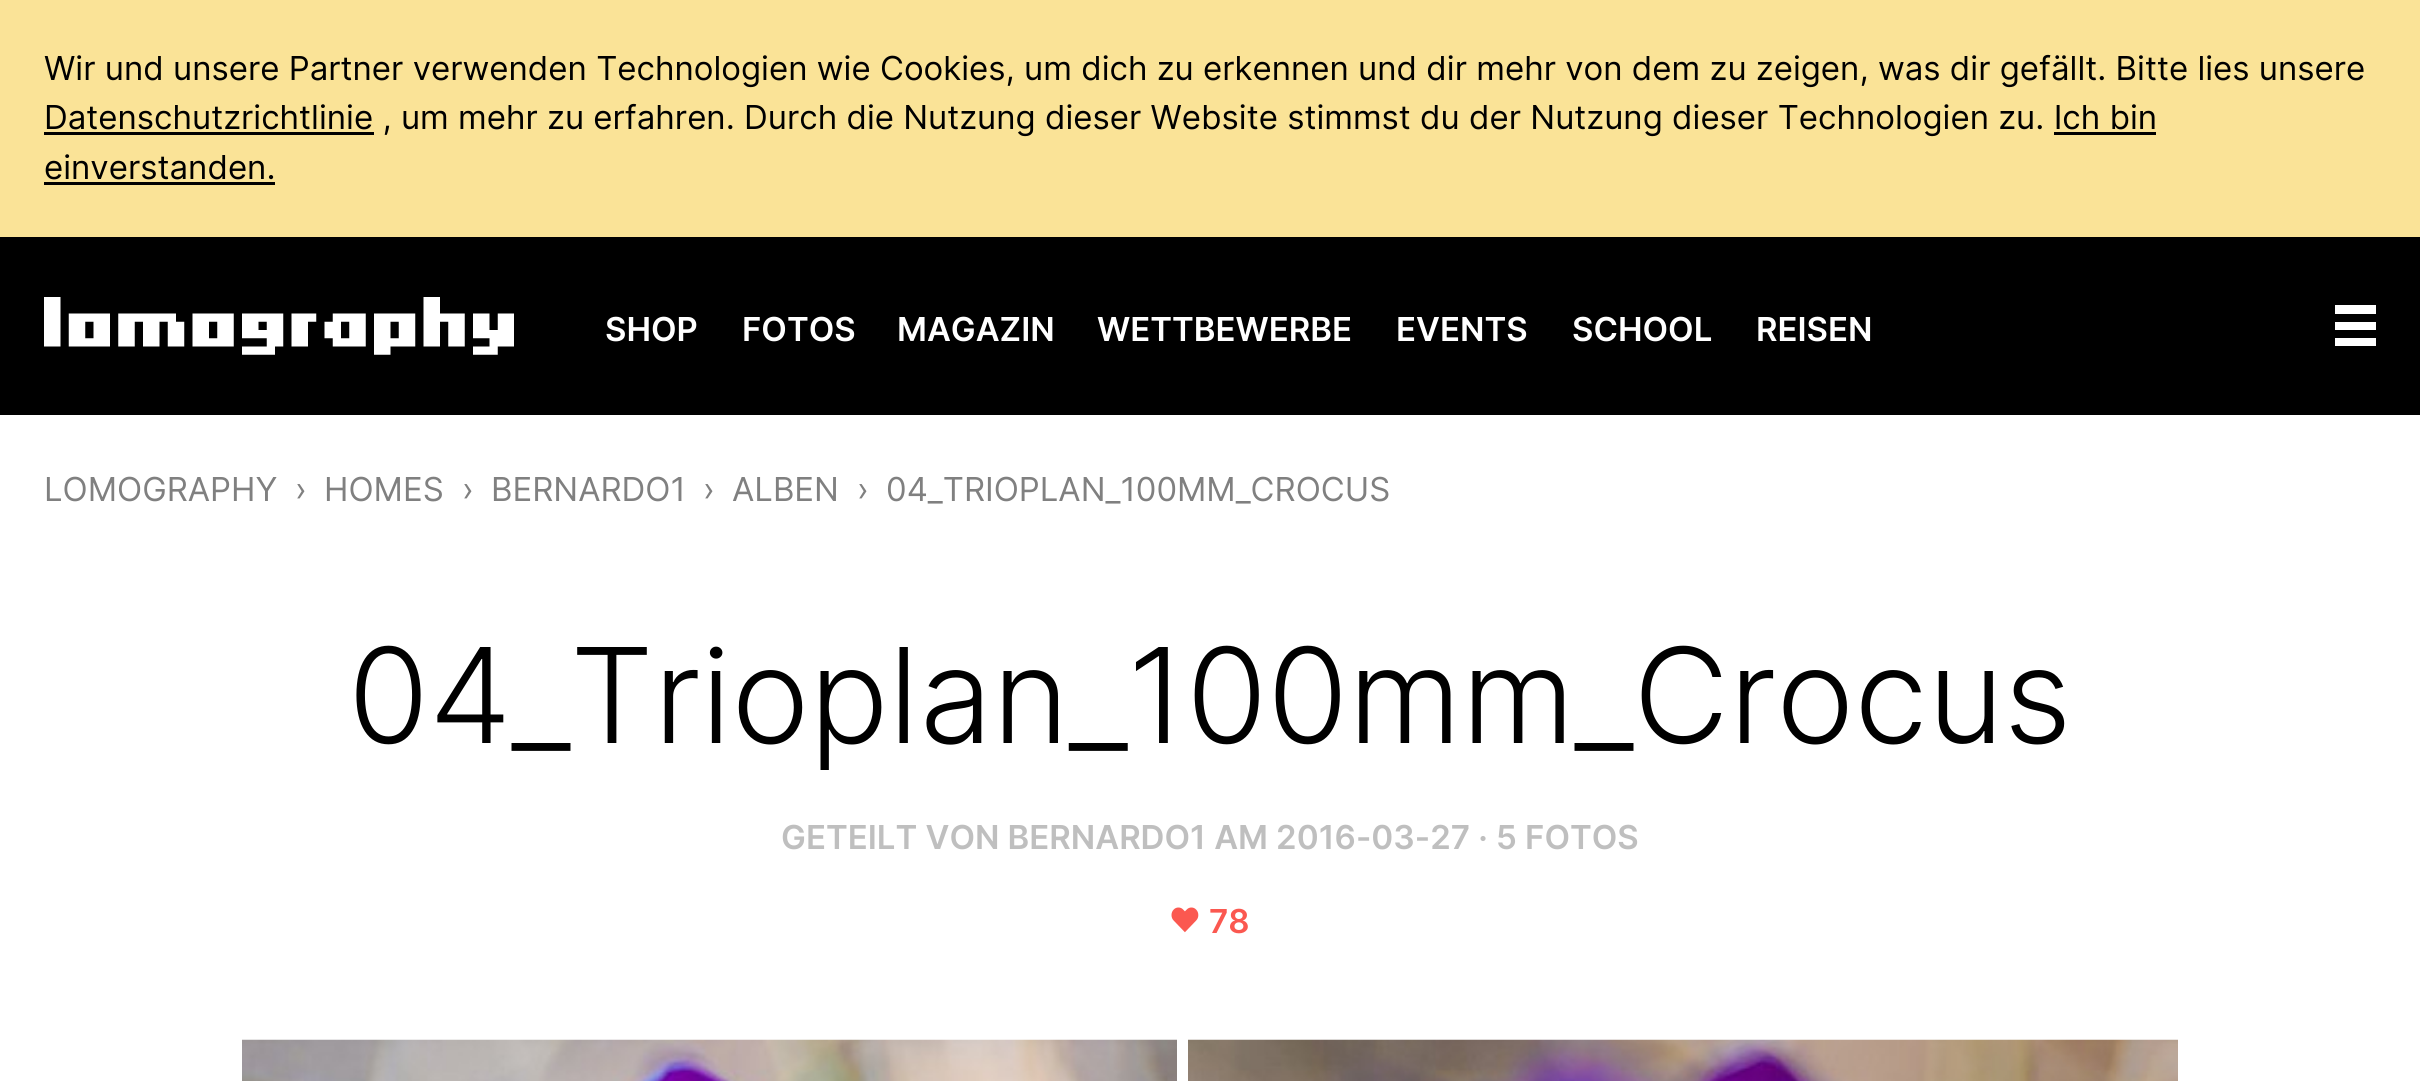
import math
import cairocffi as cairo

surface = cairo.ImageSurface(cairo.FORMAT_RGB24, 2420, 1081)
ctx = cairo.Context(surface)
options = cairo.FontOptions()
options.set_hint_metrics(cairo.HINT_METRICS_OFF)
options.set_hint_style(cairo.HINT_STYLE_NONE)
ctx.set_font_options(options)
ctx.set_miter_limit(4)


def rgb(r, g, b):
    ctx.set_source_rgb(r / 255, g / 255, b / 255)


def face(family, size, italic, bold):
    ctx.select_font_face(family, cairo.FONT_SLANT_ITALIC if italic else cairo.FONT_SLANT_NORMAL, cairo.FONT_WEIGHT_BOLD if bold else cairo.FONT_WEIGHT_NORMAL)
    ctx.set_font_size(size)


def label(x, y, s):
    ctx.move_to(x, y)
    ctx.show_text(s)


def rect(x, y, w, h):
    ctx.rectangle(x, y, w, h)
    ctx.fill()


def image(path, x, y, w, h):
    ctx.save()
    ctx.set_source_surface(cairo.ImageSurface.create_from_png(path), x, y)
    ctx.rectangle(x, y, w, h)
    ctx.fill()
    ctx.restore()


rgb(255, 255, 255)
ctx.paint()
rgb(250, 227, 151)
rect(0, 0, 2420, 237)
face('Inter', 33, 0, 0)
rgb(0, 0, 0)
label(44, 80, 'Wir und unsere Partner verwenden Technologien wie Cookies, um dich zu erkennen und dir mehr von dem zu zeigen, was dir gefällt. Bitte lies unsere')
rect(44, 132, 330, 3)
label(44, 129, 'Datenschutzrichtlinie , um mehr zu erfahren. Durch die Nutzung dieser Website stimmst du der Nutzung dieser Technologien zu. Ich bin')
label(44, 179, 'einverstanden.')
rect(2054, 132, 102, 3)
rect(44, 182, 231, 3)
rect(0, 237, 2420, 178)
image('image0.png', 44, 297, 470, 58)
face('Inter SemiBold', 33, 0, 0)
rgb(255, 255, 255)
label(605, 341, 'SHOP')
label(742, 341, 'FOTOS')
label(897, 341, 'MAGAZIN')
label(1097, 341, 'WETTBEWERBE')
label(1396, 341, 'EVENTS')
label(1572, 341, 'SCHOOL')
label(1756, 341, 'REISEN')
ctx.new_path()
ctx.move_to(2335, 305)
ctx.line_to(2335, 314)
ctx.line_to(2376, 314)
ctx.line_to(2376, 305)
ctx.close_path()
ctx.move_to(2335, 322)
ctx.line_to(2335, 330)
ctx.line_to(2376, 330)
ctx.line_to(2376, 322)
ctx.close_path()
ctx.move_to(2335, 338)
ctx.line_to(2335, 346)
ctx.line_to(2376, 346)
ctx.line_to(2376, 338)
ctx.close_path()
ctx.fill()
face('Inter', 33, 0, 0)
rgb(128, 128, 128)
label(44, 501, 'LOMOGRAPHY')
label(295, 501, '›')
label(324, 501, 'HOMES')
label(462, 501, '›')
label(491, 501, 'BERNARDO1')
label(703, 501, '›')
label(732, 501, 'ALBEN')
label(857, 501, '›')
label(886, 501, '04_TRIOPLAN_100MM_CROCUS')
face('Inter Light', 132, 0, 0)
rgb(0, 0, 0)
label(348, 743, '04_Trioplan_100mm_Crocus')
face('Inter SemiBold', 33, 0, 0)
rgb(191, 191, 191)
label(781, 849, 'GETEILT VON BERNARDO1 AM 2016-03-27 · 5 FOTOS')
image('image1.png', 1171, 907, 28, 26)
rgb(251, 88, 80)
label(1209, 933, '78')
image('image2.png', 242, 1039, 935, 42)
image('image3.png', 1188, 1039, 990, 42)
surface.write_to_png('render.png')
